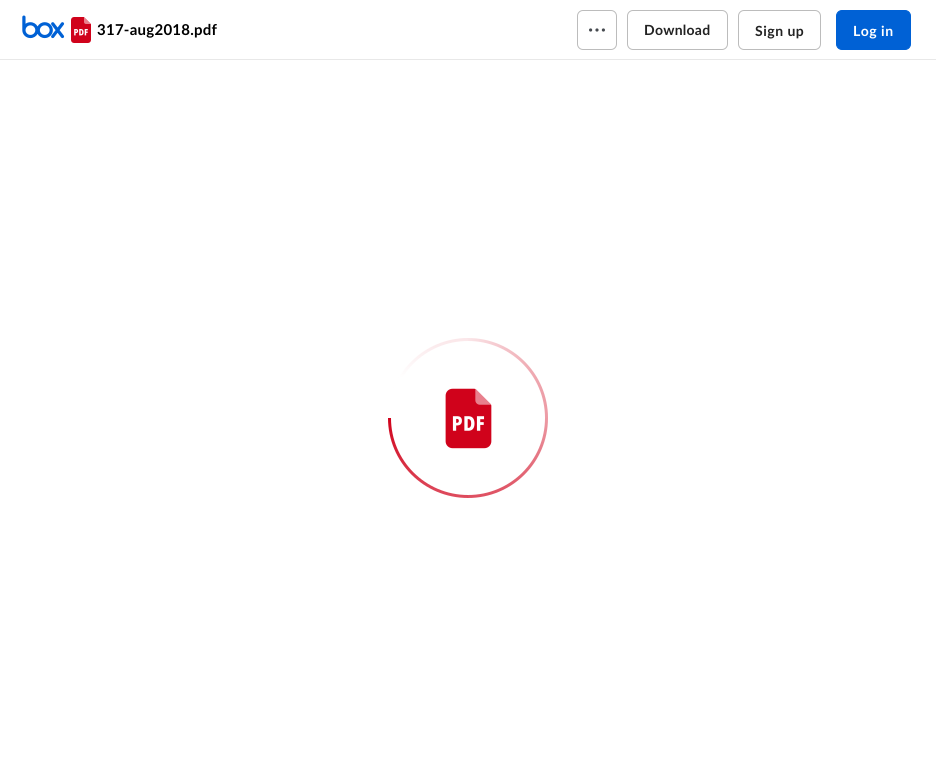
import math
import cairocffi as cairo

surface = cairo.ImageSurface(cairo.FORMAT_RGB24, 936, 776)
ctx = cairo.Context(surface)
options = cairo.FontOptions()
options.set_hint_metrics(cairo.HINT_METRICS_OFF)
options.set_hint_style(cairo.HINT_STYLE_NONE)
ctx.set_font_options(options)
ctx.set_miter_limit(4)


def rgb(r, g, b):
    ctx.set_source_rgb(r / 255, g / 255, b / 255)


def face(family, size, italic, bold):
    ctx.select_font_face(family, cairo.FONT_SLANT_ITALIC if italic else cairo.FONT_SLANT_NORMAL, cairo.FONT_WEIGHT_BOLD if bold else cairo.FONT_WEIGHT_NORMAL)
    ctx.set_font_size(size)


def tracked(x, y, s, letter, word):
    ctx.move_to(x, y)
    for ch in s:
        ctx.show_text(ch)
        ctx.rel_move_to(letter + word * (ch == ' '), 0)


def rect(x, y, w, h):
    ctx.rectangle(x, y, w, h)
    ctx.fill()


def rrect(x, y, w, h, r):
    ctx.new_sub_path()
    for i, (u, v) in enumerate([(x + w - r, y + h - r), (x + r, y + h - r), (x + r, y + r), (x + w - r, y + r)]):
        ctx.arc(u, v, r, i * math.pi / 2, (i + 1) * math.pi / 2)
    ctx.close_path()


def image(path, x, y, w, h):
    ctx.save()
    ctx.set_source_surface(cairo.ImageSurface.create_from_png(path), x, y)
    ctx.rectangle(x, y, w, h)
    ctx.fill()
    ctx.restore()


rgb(255, 255, 255)
ctx.paint()
rgb(232, 232, 232)
rect(0, 59, 936, 1)
image('image0.png', 22, 15, 43, 24)
image('image1.png', 71, 17, 20, 26)
face('Lato', 15, 0, 1)
rgb(0, 0, 0)
tracked(97, 35, '317-aug2018.pdf', 0.25, 0)
rrect(577.5, 10.5, 39, 39, 5.5)
rgb(188, 188, 188)
ctx.set_line_width(1)
ctx.stroke()
image('image2.png', 589, 28, 16, 4)
rrect(627.5, 10.5, 100, 39, 5.5)
ctx.stroke()
face('Lato', 14, 0, 1)
rgb(34, 34, 34)
tracked(644, 35, 'Download', 0.25, 0)
rrect(738.5, 10.5, 82, 39, 5.5)
rgb(188, 188, 188)
ctx.stroke()
rgb(34, 34, 34)
tracked(755, 36, 'Sign up', 0.5, 0)
rgb(0, 97, 213)
rrect(836.5, 10.5, 74, 39, 5.5)
ctx.fill_preserve()
ctx.stroke()
rgb(255, 255, 255)
tracked(853, 36, 'Log in', 0.5, 0)
rgb(208, 2, 27)
ctx.new_path()
ctx.arc(468, 418, 80, 0, 2 * math.pi)
ctx.fill()
gradient = cairo.LinearGradient(428, 499, 428, 418)
gradient.add_color_stop_rgba(0, 1, 1, 1, 0.3)
gradient.add_color_stop_rgba(1, 1, 1, 1, 0)
ctx.set_source(gradient)
ctx.new_path()
ctx.move_to(387, 418)
ctx.line_to(468, 418)
ctx.line_to(468, 499)
ctx.curve_to(423.5, 499, 387, 462.5, 387, 418)
ctx.close_path()
ctx.fill()
gradient = cairo.LinearGradient(509, 418, 509, 499)
gradient.add_color_stop_rgba(0, 1, 1, 1, 0.6)
gradient.add_color_stop_rgba(1, 1, 1, 1, 0.3)
ctx.set_source(gradient)
ctx.new_path()
ctx.move_to(468, 418)
ctx.line_to(549, 418)
ctx.curve_to(549, 462.5, 512.5, 499, 468, 499)
ctx.close_path()
ctx.fill()
gradient = cairo.LinearGradient(468, 378, 549, 378)
gradient.add_color_stop_rgba(0, 1, 1, 1, 0.9)
gradient.add_color_stop_rgba(1, 1, 1, 1, 0.6)
ctx.set_source(gradient)
ctx.new_path()
ctx.move_to(468, 337)
ctx.curve_to(512.5, 337, 549, 373.5, 549, 418)
ctx.line_to(468, 418)
ctx.close_path()
ctx.fill()
gradient = cairo.LinearGradient(428, 418, 428, 337)
gradient.add_color_stop_rgba(0.5, 1, 1, 1, 1)
gradient.add_color_stop_rgba(1, 1, 1, 1, 0.9)
ctx.set_source(gradient)
ctx.new_path()
ctx.move_to(468, 337)
ctx.line_to(468, 418)
ctx.line_to(387, 418)
ctx.curve_to(387, 373.5, 423.5, 337, 468, 337)
ctx.close_path()
ctx.fill()
rgb(255, 255, 255)
ctx.arc(468, 418, 77, 0, 2 * math.pi)
ctx.fill()
image('image3.png', 445, 388, 47, 61)
surface.write_to_png('render.png')
